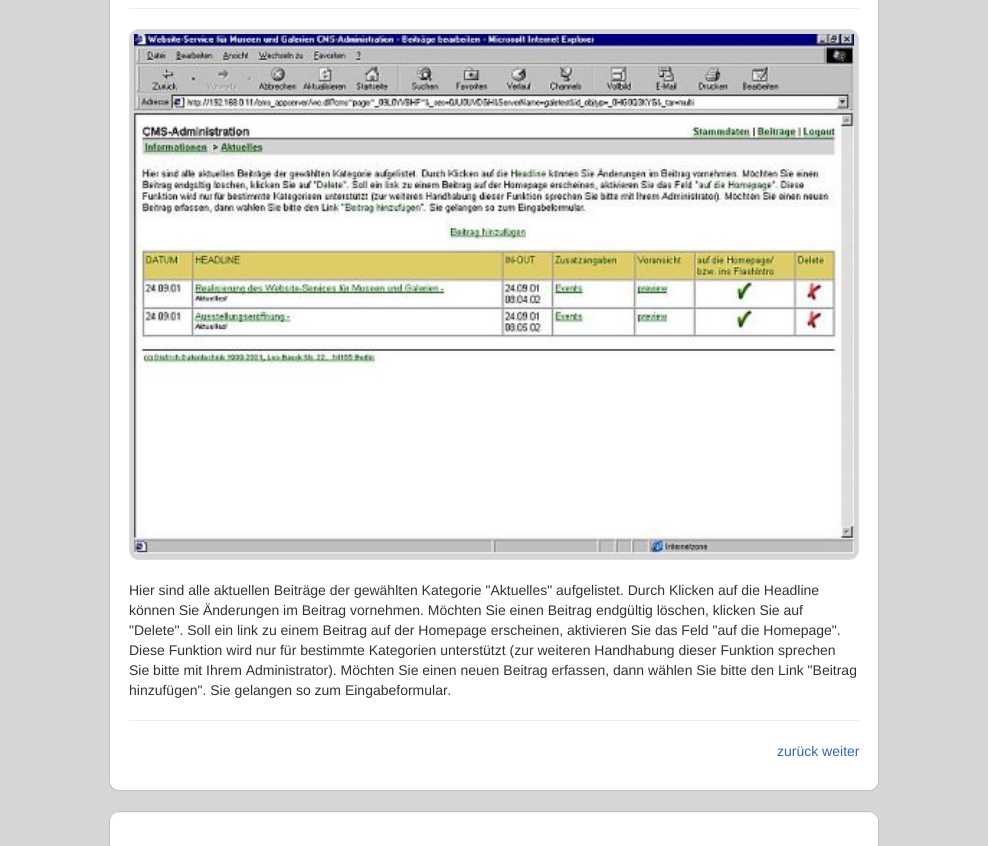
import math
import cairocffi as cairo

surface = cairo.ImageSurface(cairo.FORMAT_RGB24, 988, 846)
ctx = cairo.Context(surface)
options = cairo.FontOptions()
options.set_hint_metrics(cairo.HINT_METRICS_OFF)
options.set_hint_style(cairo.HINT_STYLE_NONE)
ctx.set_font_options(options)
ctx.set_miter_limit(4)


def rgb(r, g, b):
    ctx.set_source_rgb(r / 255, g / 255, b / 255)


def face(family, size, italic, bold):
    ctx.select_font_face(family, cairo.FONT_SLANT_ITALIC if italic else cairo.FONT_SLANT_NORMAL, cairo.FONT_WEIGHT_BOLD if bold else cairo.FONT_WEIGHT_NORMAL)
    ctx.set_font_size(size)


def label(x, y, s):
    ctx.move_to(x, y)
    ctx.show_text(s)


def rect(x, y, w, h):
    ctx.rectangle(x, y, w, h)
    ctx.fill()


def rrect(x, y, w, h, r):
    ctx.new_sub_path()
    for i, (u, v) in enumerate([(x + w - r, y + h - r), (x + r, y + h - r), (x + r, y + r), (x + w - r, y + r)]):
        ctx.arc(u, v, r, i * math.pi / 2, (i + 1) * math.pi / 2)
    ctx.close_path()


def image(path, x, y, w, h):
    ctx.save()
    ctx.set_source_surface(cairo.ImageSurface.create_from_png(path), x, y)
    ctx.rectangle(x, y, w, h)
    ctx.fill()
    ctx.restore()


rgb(214, 214, 214)
ctx.paint()
rgb(255, 255, 255)
rrect(109.5, -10.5, 769, 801, 9.5)
ctx.fill_preserve()
rgb(191, 191, 191)
ctx.set_line_width(1)
ctx.stroke()
rgb(238, 238, 238)
rect(129, 8, 730, 1)
rgb(214, 214, 214)
rrect(129.5, 29.5, 729, 530, 9.5)
ctx.fill_preserve()
rgb(221, 221, 221)
ctx.stroke()
image('image0.png', 134, 34, 720, 521)
face('Liberation Sans', 14, 0, 0)
rgb(51, 51, 51)
label(129, 595, 'Hier sind alle aktuellen Beiträge der gewählten Kategorie "Aktuelles" aufgelistet. Durch Klicken auf die Headline')
label(129, 615, 'können Sie Änderungen im Beitrag vornehmen. Möchten Sie einen Beitrag endgültig löschen, klicken Sie auf')
label(129, 635, '"Delete". Soll ein link zu einem Beitrag auf der Homepage erscheinen, aktivieren Sie das Feld "auf die Homepage".')
label(129, 655, 'Diese Funktion wird nur für bestimmte Kategorien unterstützt (zur weiteren Handhabung dieser Funktion sprechen')
label(129, 675, 'Sie bitte mit Ihrem Administrator). Möchten Sie einen neuen Beitrag erfassen, dann wählen Sie bitte den Link "Beitrag')
label(129, 695, 'hinzufügen". Sie gelangen so zum Eingabeformular.')
rgb(238, 238, 238)
rect(129, 720, 730, 1)
rgb(52, 99, 185)
label(777, 756, 'zurück weiter')
rgb(255, 255, 255)
rrect(109, 811, 770, 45, 10)
ctx.fill()
rgb(242, 242, 242)
ctx.new_path()
ctx.move_to(119, 813)
ctx.line_to(869, 813)
ctx.curve_to(874, 813, 878, 817, 878, 822)
ctx.line_to(878, 821)
ctx.curve_to(878, 816, 874, 812, 869, 812)
ctx.line_to(119, 812)
ctx.curve_to(114, 812, 110, 816, 110, 821)
ctx.line_to(110, 822)
ctx.curve_to(110, 817, 114, 813, 119, 813)
ctx.close_path()
ctx.fill()
rrect(109.5, 811.5, 769, 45, 9.5)
rgb(191, 191, 191)
ctx.stroke()
surface.write_to_png('render.png')
